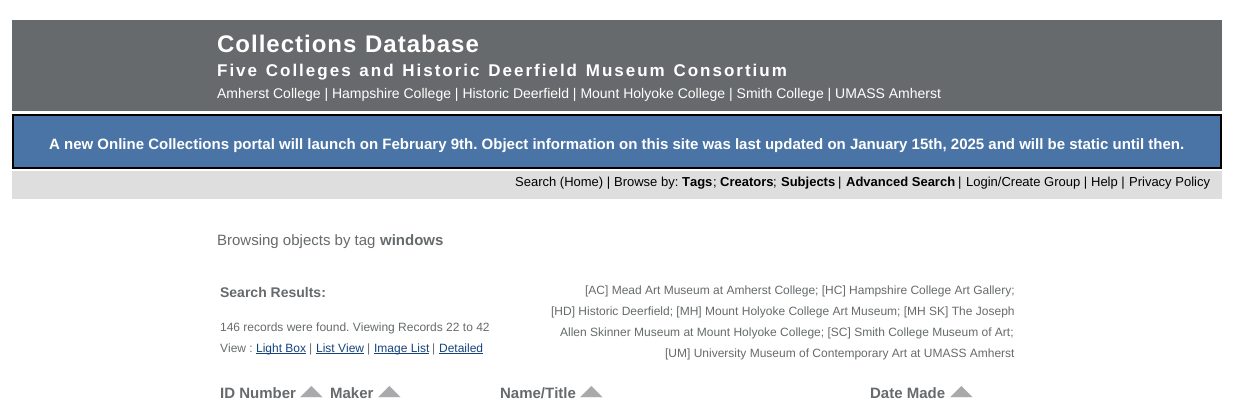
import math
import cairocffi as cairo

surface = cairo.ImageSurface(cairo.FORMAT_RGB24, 1234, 410)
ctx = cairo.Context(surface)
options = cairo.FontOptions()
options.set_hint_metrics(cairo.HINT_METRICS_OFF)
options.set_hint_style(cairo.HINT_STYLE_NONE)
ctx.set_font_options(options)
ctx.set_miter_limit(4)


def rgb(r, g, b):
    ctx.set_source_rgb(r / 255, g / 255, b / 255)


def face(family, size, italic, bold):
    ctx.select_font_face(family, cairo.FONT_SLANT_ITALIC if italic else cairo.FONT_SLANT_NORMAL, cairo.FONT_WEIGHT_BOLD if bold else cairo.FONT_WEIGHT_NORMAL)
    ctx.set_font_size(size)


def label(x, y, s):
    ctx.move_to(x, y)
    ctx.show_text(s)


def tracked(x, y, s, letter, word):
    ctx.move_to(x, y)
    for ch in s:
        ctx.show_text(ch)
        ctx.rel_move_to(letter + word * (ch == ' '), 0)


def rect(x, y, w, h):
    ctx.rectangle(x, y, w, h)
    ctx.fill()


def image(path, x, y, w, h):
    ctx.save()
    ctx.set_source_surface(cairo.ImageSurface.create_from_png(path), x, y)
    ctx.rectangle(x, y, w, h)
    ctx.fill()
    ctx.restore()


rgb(255, 255, 255)
ctx.paint()
rgb(102, 106, 108)
rect(12, 20, 1210, 91)
face('Liberation Sans', 24, 0, 1)
rgb(255, 255, 255)
tracked(217, 52, 'Collections Database', 1, 0)
face('Liberation Sans', 17, 0, 1)
tracked(217, 76, 'Five Colleges and Historic Deerfield Museum Consortium', 2, 0)
face('Liberation Sans', 14, 0, 0)
label(217, 98, 'Amherst College | Hampshire College | Historic Deerfield | Mount Holyoke College | Smith College | UMASS Amherst')
rgb(73, 116, 165)
ctx.rectangle(13, 115, 1208, 53)
ctx.fill_preserve()
rgb(0, 0, 0)
ctx.stroke()
face('Liberation Sans', 15, 0, 1)
rgb(255, 255, 255)
label(49, 149, 'A new Online Collections portal will launch on February 9th. Object information on this site was last updated on January 15th, 2025 and will be static until then.')
rgb(222, 222, 222)
rect(12, 171, 1210, 28)
face('Liberation Sans', 13, 0, 0)
rgb(0, 0, 0)
label(515, 186, 'Search (Home) |')
label(614, 186, 'Browse by:')
face('Liberation Sans', 13, 0, 1)
label(682, 186, 'Tags')
face('Liberation Sans', 13, 0, 0)
label(713, 186, ';')
face('Liberation Sans', 13, 0, 1)
label(720, 186, 'Creators')
face('Liberation Sans', 13, 0, 0)
label(773, 186, ';')
face('Liberation Sans', 13, 0, 1)
label(781, 186, 'Subjects')
face('Liberation Sans', 13, 0, 0)
label(838, 186, '|')
face('Liberation Sans', 13, 0, 1)
label(846, 186, 'Advanced Search')
face('Liberation Sans', 13, 0, 0)
label(958, 186, '|')
label(966, 186, 'Login/Create Group |')
label(1091, 186, 'Help |')
label(1129, 186, 'Privacy Policy')
face('Liberation Sans', 15, 0, 0)
rgb(102, 106, 108)
label(217, 245, 'Browsing objects by tag')
face('Liberation Sans', 15, 0, 1)
label(380, 245, 'windows')
face('Liberation Sans', 14, 0, 1)
label(220, 297, 'Search Results:')
face('Liberation Sans', 12, 0, 0)
label(220, 331, '146 records were found. Viewing Records 22 to 42')
label(220, 352, 'View :')
rgb(21, 68, 124)
rect(256, 353, 50, 1)
label(256, 352, 'Light Box')
rgb(102, 106, 108)
label(309, 352, '|')
rgb(21, 68, 124)
label(316, 352, 'List View')
rect(316, 353, 48, 1)
rgb(102, 106, 108)
label(367, 352, '|')
rgb(21, 68, 124)
rect(374, 353, 55, 1)
label(374, 352, 'Image List')
rgb(102, 106, 108)
label(432, 352, '|')
rgb(21, 68, 124)
label(439, 352, 'Detailed')
rect(439, 353, 44, 1)
rgb(102, 106, 108)
label(585, 294, '[AC] Mead Art Museum at Amherst College; [HC] Hampshire College Art Gallery;')
label(551, 315, '[HD] Historic Deerfield; [MH] Mount Holyoke College Art Museum; [MH SK] The Joseph')
label(560, 336, 'Allen Skinner Museum at Mount Holyoke College; [SC] Smith College Museum of Art;')
label(665, 357, '[UM] University Museum of Contemporary Art at UMASS Amherst')
face('Liberation Sans', 15, 0, 1)
label(220, 398, 'ID Number')
image('image0.png', 300, 386, 23, 12)
label(330, 398, 'Maker')
image('image0.png', 378, 386, 23, 12)
label(500, 398, 'Name/Title')
image('image0.png', 580, 386, 23, 12)
label(870, 398, 'Date Made')
image('image0.png', 950, 386, 23, 12)
surface.write_to_png('render.png')
